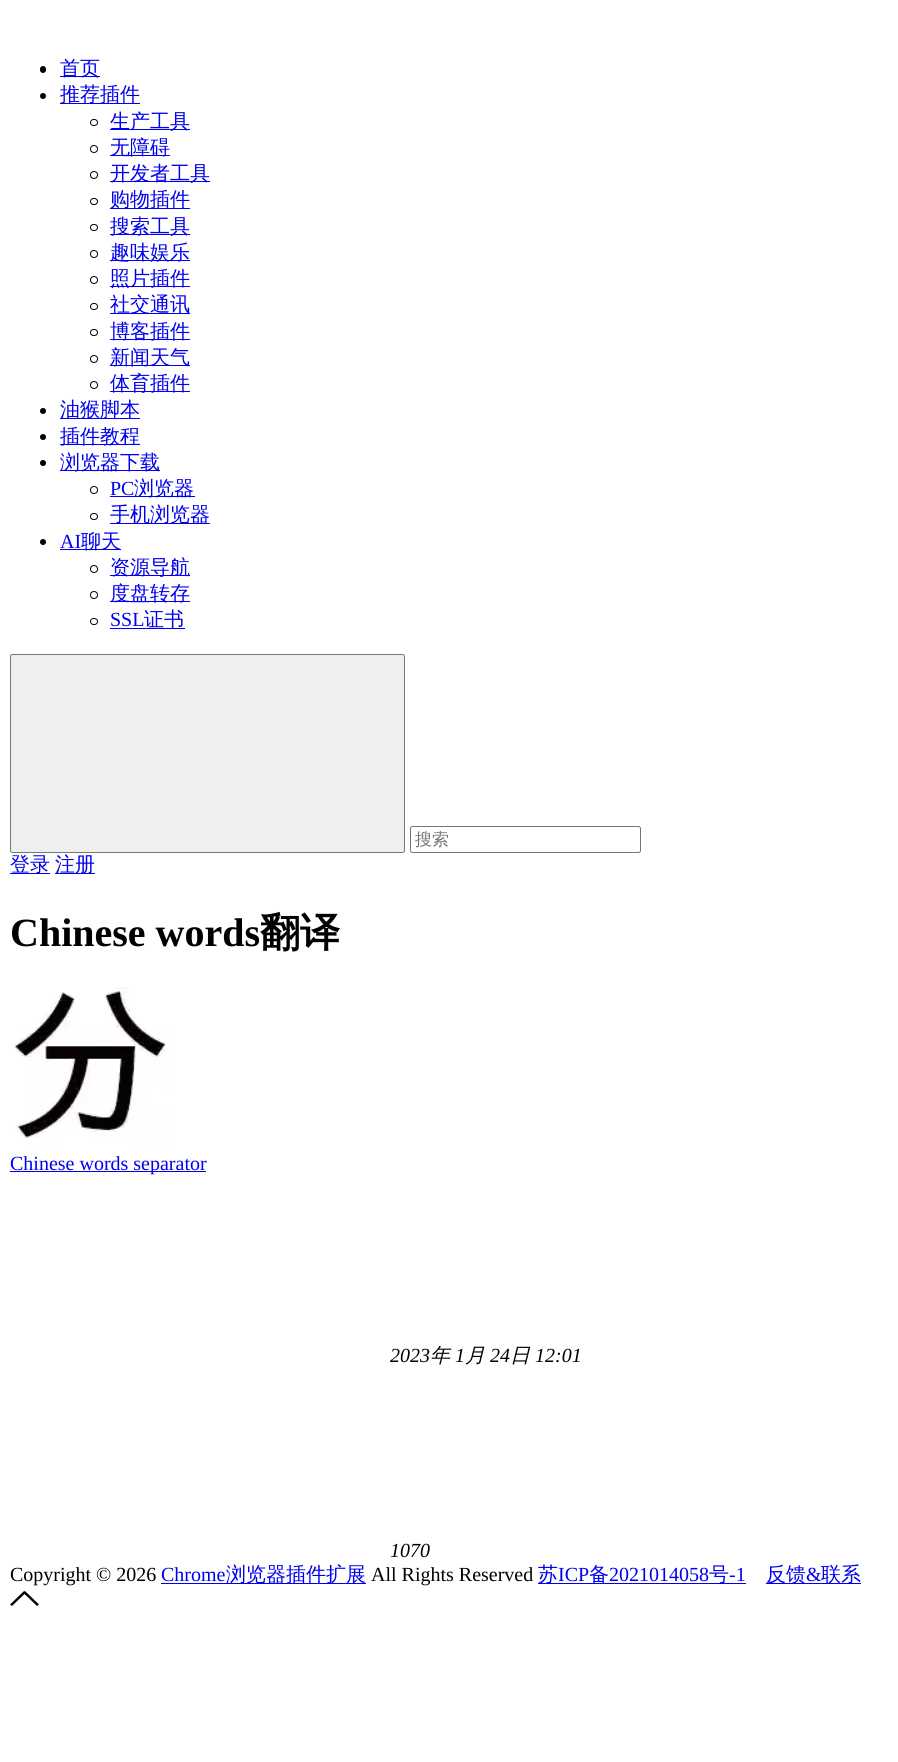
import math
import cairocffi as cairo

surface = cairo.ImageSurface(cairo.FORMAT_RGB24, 898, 1762)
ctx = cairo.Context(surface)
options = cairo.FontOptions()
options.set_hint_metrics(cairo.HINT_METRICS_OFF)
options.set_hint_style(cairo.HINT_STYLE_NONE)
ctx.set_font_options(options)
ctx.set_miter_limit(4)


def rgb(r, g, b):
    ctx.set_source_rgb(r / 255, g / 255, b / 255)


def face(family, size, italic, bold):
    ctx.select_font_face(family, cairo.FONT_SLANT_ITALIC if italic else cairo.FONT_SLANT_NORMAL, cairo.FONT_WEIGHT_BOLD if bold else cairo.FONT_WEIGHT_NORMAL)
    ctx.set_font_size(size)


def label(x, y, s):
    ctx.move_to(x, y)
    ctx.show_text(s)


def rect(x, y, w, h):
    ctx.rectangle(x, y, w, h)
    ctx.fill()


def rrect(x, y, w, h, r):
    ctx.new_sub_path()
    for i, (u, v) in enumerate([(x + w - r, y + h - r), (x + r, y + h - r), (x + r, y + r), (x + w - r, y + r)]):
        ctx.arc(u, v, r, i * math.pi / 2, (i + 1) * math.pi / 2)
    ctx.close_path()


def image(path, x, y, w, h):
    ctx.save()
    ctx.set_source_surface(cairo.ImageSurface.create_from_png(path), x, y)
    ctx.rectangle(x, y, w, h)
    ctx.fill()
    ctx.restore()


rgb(255, 255, 255)
ctx.paint()
rgb(0, 0, 0)
rrect(40, 66, 6, 7, 3)
ctx.fill()
rgb(0, 0, 238)
rect(60, 76, 40, 1)
face('WenQuanYi Zen Hei Medium', 20, 0, 0)
label(60, 75, '首页')
rgb(0, 0, 0)
ctx.new_path()
ctx.arc(43, 96, 3, 0, 2 * math.pi)
ctx.fill()
rgb(0, 0, 238)
rect(60, 103, 80, 1)
label(60, 101, '推荐插件')
rrect(90.5, 119.5, 7, 6, 3)
rgb(0, 0, 0)
ctx.set_line_width(1)
ctx.stroke()
rgb(0, 0, 238)
rect(110, 129, 80, 1)
label(110, 128, '生产工具')
ctx.new_path()
ctx.arc(94, 149, 3.5, 0, 2 * math.pi)
rgb(0, 0, 0)
ctx.stroke()
rgb(0, 0, 238)
rect(110, 155, 60, 1)
label(110, 154, '无障碍')
ctx.new_path()
ctx.arc(94, 175, 3.5, 0, 2 * math.pi)
rgb(0, 0, 0)
ctx.stroke()
rgb(0, 0, 238)
rect(110, 181, 100, 1)
label(110, 180, '开发者工具')
rrect(90.5, 198.5, 7, 6, 3)
rgb(0, 0, 0)
ctx.stroke()
rgb(0, 0, 238)
rect(110, 208, 80, 1)
label(110, 206, '购物插件')
rrect(90.5, 224.5, 7, 6, 3)
rgb(0, 0, 0)
ctx.stroke()
rgb(0, 0, 238)
rect(110, 234, 80, 1)
label(110, 233, '搜索工具')
ctx.new_path()
ctx.arc(94, 254, 3.5, 0, 2 * math.pi)
rgb(0, 0, 0)
ctx.stroke()
rgb(0, 0, 238)
rect(110, 260, 80, 1)
label(110, 259, '趣味娱乐')
ctx.new_path()
ctx.arc(94, 280, 3.5, 0, 2 * math.pi)
rgb(0, 0, 0)
ctx.stroke()
rgb(0, 0, 238)
rect(110, 286, 80, 1)
label(110, 285, '照片插件')
rrect(90.5, 303.5, 7, 6, 3)
rgb(0, 0, 0)
ctx.stroke()
rgb(0, 0, 238)
rect(110, 313, 80, 1)
label(110, 311, '社交通讯')
rrect(90.5, 329.5, 7, 6, 3)
rgb(0, 0, 0)
ctx.stroke()
rgb(0, 0, 238)
rect(110, 339, 80, 1)
label(110, 338, '博客插件')
ctx.new_path()
ctx.arc(94, 359, 3.5, 0, 2 * math.pi)
rgb(0, 0, 0)
ctx.stroke()
rgb(0, 0, 238)
rect(110, 365, 80, 1)
label(110, 364, '新闻天气')
ctx.new_path()
ctx.arc(94, 385, 3.5, 0, 2 * math.pi)
rgb(0, 0, 0)
ctx.stroke()
rgb(0, 0, 238)
rect(110, 391, 80, 1)
label(110, 390, '体育插件')
rgb(0, 0, 0)
ctx.new_path()
ctx.arc(43, 411, 3, 0, 2 * math.pi)
ctx.fill()
rgb(0, 0, 238)
rect(60, 418, 80, 1)
label(60, 416, '油猴脚本')
rgb(0, 0, 0)
ctx.new_path()
ctx.arc(43, 437, 3, 0, 2 * math.pi)
ctx.fill()
rgb(0, 0, 238)
rect(60, 444, 80, 1)
label(60, 443, '插件教程')
rgb(0, 0, 0)
ctx.new_path()
ctx.arc(43, 463, 3, 0, 2 * math.pi)
ctx.fill()
rgb(0, 0, 238)
rect(60, 470, 100, 1)
label(60, 469, '浏览器下载')
ctx.new_path()
ctx.arc(94, 490, 3.5, 0, 2 * math.pi)
rgb(0, 0, 0)
ctx.stroke()
face('Liberation Serif', 20, 0, 0)
rgb(0, 0, 238)
label(110, 495, 'PC')
rect(110, 496, 85, 1)
face('WenQuanYi Zen Hei Medium', 20, 0, 0)
label(134, 495, '浏览器')
rrect(90.5, 513.5, 7, 6, 3)
rgb(0, 0, 0)
ctx.stroke()
rgb(0, 0, 238)
rect(110, 523, 100, 1)
label(110, 521, '手机浏览器')
rgb(0, 0, 0)
ctx.new_path()
ctx.arc(43, 542, 3, 0, 2 * math.pi)
ctx.fill()
face('Liberation Serif', 20, 0, 0)
rgb(0, 0, 238)
label(60, 548, 'AI')
rect(60, 549, 61, 1)
face('WenQuanYi Zen Hei Medium', 20, 0, 0)
label(81, 548, '聊天')
ctx.new_path()
ctx.arc(94, 569, 3.5, 0, 2 * math.pi)
rgb(0, 0, 0)
ctx.stroke()
rgb(0, 0, 238)
rect(110, 575, 80, 1)
label(110, 574, '资源导航')
ctx.new_path()
ctx.arc(94, 595, 3.5, 0, 2 * math.pi)
rgb(0, 0, 0)
ctx.stroke()
rgb(0, 0, 238)
rect(110, 601, 80, 1)
label(110, 600, '度盘转存')
rrect(90.5, 618.5, 7, 6, 3)
rgb(0, 0, 0)
ctx.stroke()
face('Liberation Serif', 20, 0, 0)
rgb(0, 0, 238)
label(110, 626, 'SSL')
rect(110, 628, 75, 1)
face('WenQuanYi Zen Hei Medium', 20, 0, 0)
label(144, 626, '证书')
rgb(239, 239, 239)
rrect(10.5, 654.5, 394, 198, 2)
ctx.fill_preserve()
rgb(118, 118, 118)
ctx.stroke()
rrect(410.5, 826.5, 230, 26, 2)
ctx.stroke()
face('WenQuanYi Zen Hei Medium', 17, 0, 0)
rgb(117, 117, 117)
label(415, 845, '搜索')
rgb(0, 0, 238)
rect(10, 873, 40, 1)
face('WenQuanYi Zen Hei Medium', 20, 0, 0)
label(10, 871, '登录')
rect(55, 873, 40, 1)
label(55, 871, '注册')
face('Liberation Serif', 40, 0, 1)
rgb(0, 0, 0)
label(10, 946, 'Chinese words')
face('WenQuanYi Zen Hei', 40, 0, 1)
label(260, 946, '翻译')
image('image0.png', 14, 987, 156, 160)
rgb(0, 0, 238)
rect(10, 1171, 196, 1)
face('Liberation Serif', 20, 0, 0)
label(10, 1170, 'Chinese words separator')
face('Liberation Serif', 20, 1, 0)
rgb(0, 0, 0)
label(390, 1362, '2023')
face('WenQuanYi Zen Hei Medium', 20, 1, 0)
label(430, 1362, '年')
face('Liberation Serif', 20, 1, 0)
label(455, 1362, '1')
face('WenQuanYi Zen Hei Medium', 20, 1, 0)
label(465, 1362, '月')
face('Liberation Serif', 20, 1, 0)
label(490, 1362, '24')
face('WenQuanYi Zen Hei Medium', 20, 1, 0)
label(510, 1362, '日')
face('Liberation Serif', 20, 1, 0)
label(535, 1362, '12:01')
label(390, 1557, '1070')
face('Liberation Serif', 20, 0, 0)
label(10, 1581, 'Copyright © 2026')
rgb(0, 0, 238)
label(161, 1581, 'Chrome')
rect(161, 1583, 205, 1)
face('WenQuanYi Zen Hei Medium', 20, 0, 0)
label(226, 1581, '浏览器插件扩展')
face('Liberation Serif', 20, 0, 0)
rgb(0, 0, 0)
label(371, 1581, 'All Rights Reserved')
rgb(0, 0, 238)
rect(538, 1583, 208, 1)
face('WenQuanYi Zen Hei Medium', 20, 0, 0)
label(538, 1581, '苏')
face('Liberation Serif', 20, 0, 0)
label(558, 1581, 'ICP')
face('WenQuanYi Zen Hei Medium', 20, 0, 0)
label(589, 1581, '备')
face('Liberation Serif', 20, 0, 0)
label(609, 1581, '2021014058')
face('WenQuanYi Zen Hei Medium', 20, 0, 0)
label(709, 1581, '号')
face('Liberation Serif', 20, 0, 0)
label(729, 1581, '-1')
rect(766, 1583, 95, 1)
face('WenQuanYi Zen Hei Medium', 20, 0, 0)
label(766, 1581, '反馈')
face('Liberation Serif', 20, 0, 0)
label(806, 1581, '&')
face('WenQuanYi Zen Hei Medium', 20, 0, 0)
label(821, 1581, '联系')
rgb(0, 0, 0)
ctx.set_fill_rule(cairo.FILL_RULE_EVEN_ODD)
ctx.new_path()
ctx.move_to(37, 1606)
ctx.line_to(24.5, 1594)
ctx.line_to(12, 1606)
ctx.line_to(10, 1604.5)
ctx.line_to(23.5, 1591.5)
ctx.curve_to(24, 1591, 25, 1591, 25.5, 1591.5)
ctx.line_to(39, 1604.5)
ctx.close_path()
ctx.fill()
surface.write_to_png('render.png')
